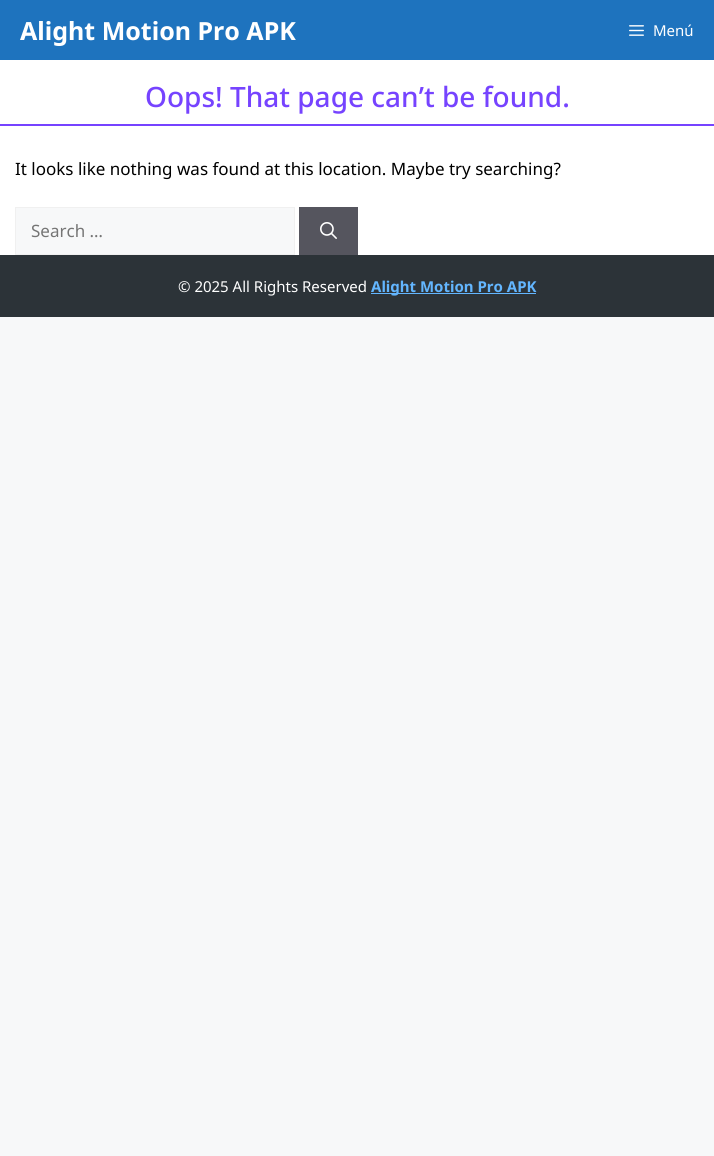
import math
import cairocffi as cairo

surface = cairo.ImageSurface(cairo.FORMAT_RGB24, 714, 1156)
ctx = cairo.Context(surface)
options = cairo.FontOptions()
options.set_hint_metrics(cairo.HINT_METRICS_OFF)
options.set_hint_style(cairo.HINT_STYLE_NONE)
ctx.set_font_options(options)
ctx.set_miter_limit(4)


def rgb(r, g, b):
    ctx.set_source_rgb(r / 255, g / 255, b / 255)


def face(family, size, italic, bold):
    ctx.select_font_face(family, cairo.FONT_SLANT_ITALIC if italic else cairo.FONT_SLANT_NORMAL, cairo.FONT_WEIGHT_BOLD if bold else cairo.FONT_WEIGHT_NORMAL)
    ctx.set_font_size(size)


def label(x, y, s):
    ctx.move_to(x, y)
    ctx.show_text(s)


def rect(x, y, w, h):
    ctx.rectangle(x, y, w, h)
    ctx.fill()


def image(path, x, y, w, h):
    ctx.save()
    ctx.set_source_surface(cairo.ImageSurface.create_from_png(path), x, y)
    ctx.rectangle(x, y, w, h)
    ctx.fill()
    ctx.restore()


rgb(247, 248, 249)
ctx.paint()
rgb(30, 115, 190)
rect(0, 0, 714, 60)
face('Noto Sans', 25, 0, 1)
rgb(255, 255, 255)
label(20, 40, 'Alight Motion Pro APK')
image('image0.png', 629, 25, 15, 11)
face('Noto Sans', 15, 0, 0)
label(653, 36, 'Menú')
rect(0, 60, 714, 195)
rgb(118, 67, 255)
rect(0, 124, 714, 2)
face('Noto Sans Medium', 28, 0, 0)
label(145, 107, 'Oops! That page can’t be found.')
face('Noto Sans', 17, 0, 0)
rgb(0, 0, 0)
label(15, 175, 'It looks like nothing was found at this location. Maybe try searching?')
rgb(247, 248, 249)
ctx.rectangle(15.5, 207.5, 279, 47)
ctx.fill_preserve()
rgb(240, 240, 240)
ctx.set_line_width(1)
ctx.stroke()
rgb(117, 117, 117)
label(31, 237, 'Search …')
rgb(85, 85, 94)
rect(299, 207, 59, 48)
image('image1.png', 320, 222, 17, 17)
rgb(44, 51, 56)
rect(0, 255, 714, 62)
face('Noto Sans', 15, 0, 0)
rgb(255, 255, 255)
label(178, 292, '© 2025 All Rights Reserved')
rgb(99, 182, 255)
rect(371, 293, 165, 1)
face('Noto Sans', 15, 0, 1)
label(371, 292, 'Alight Motion Pro APK')
surface.write_to_png('render.png')
